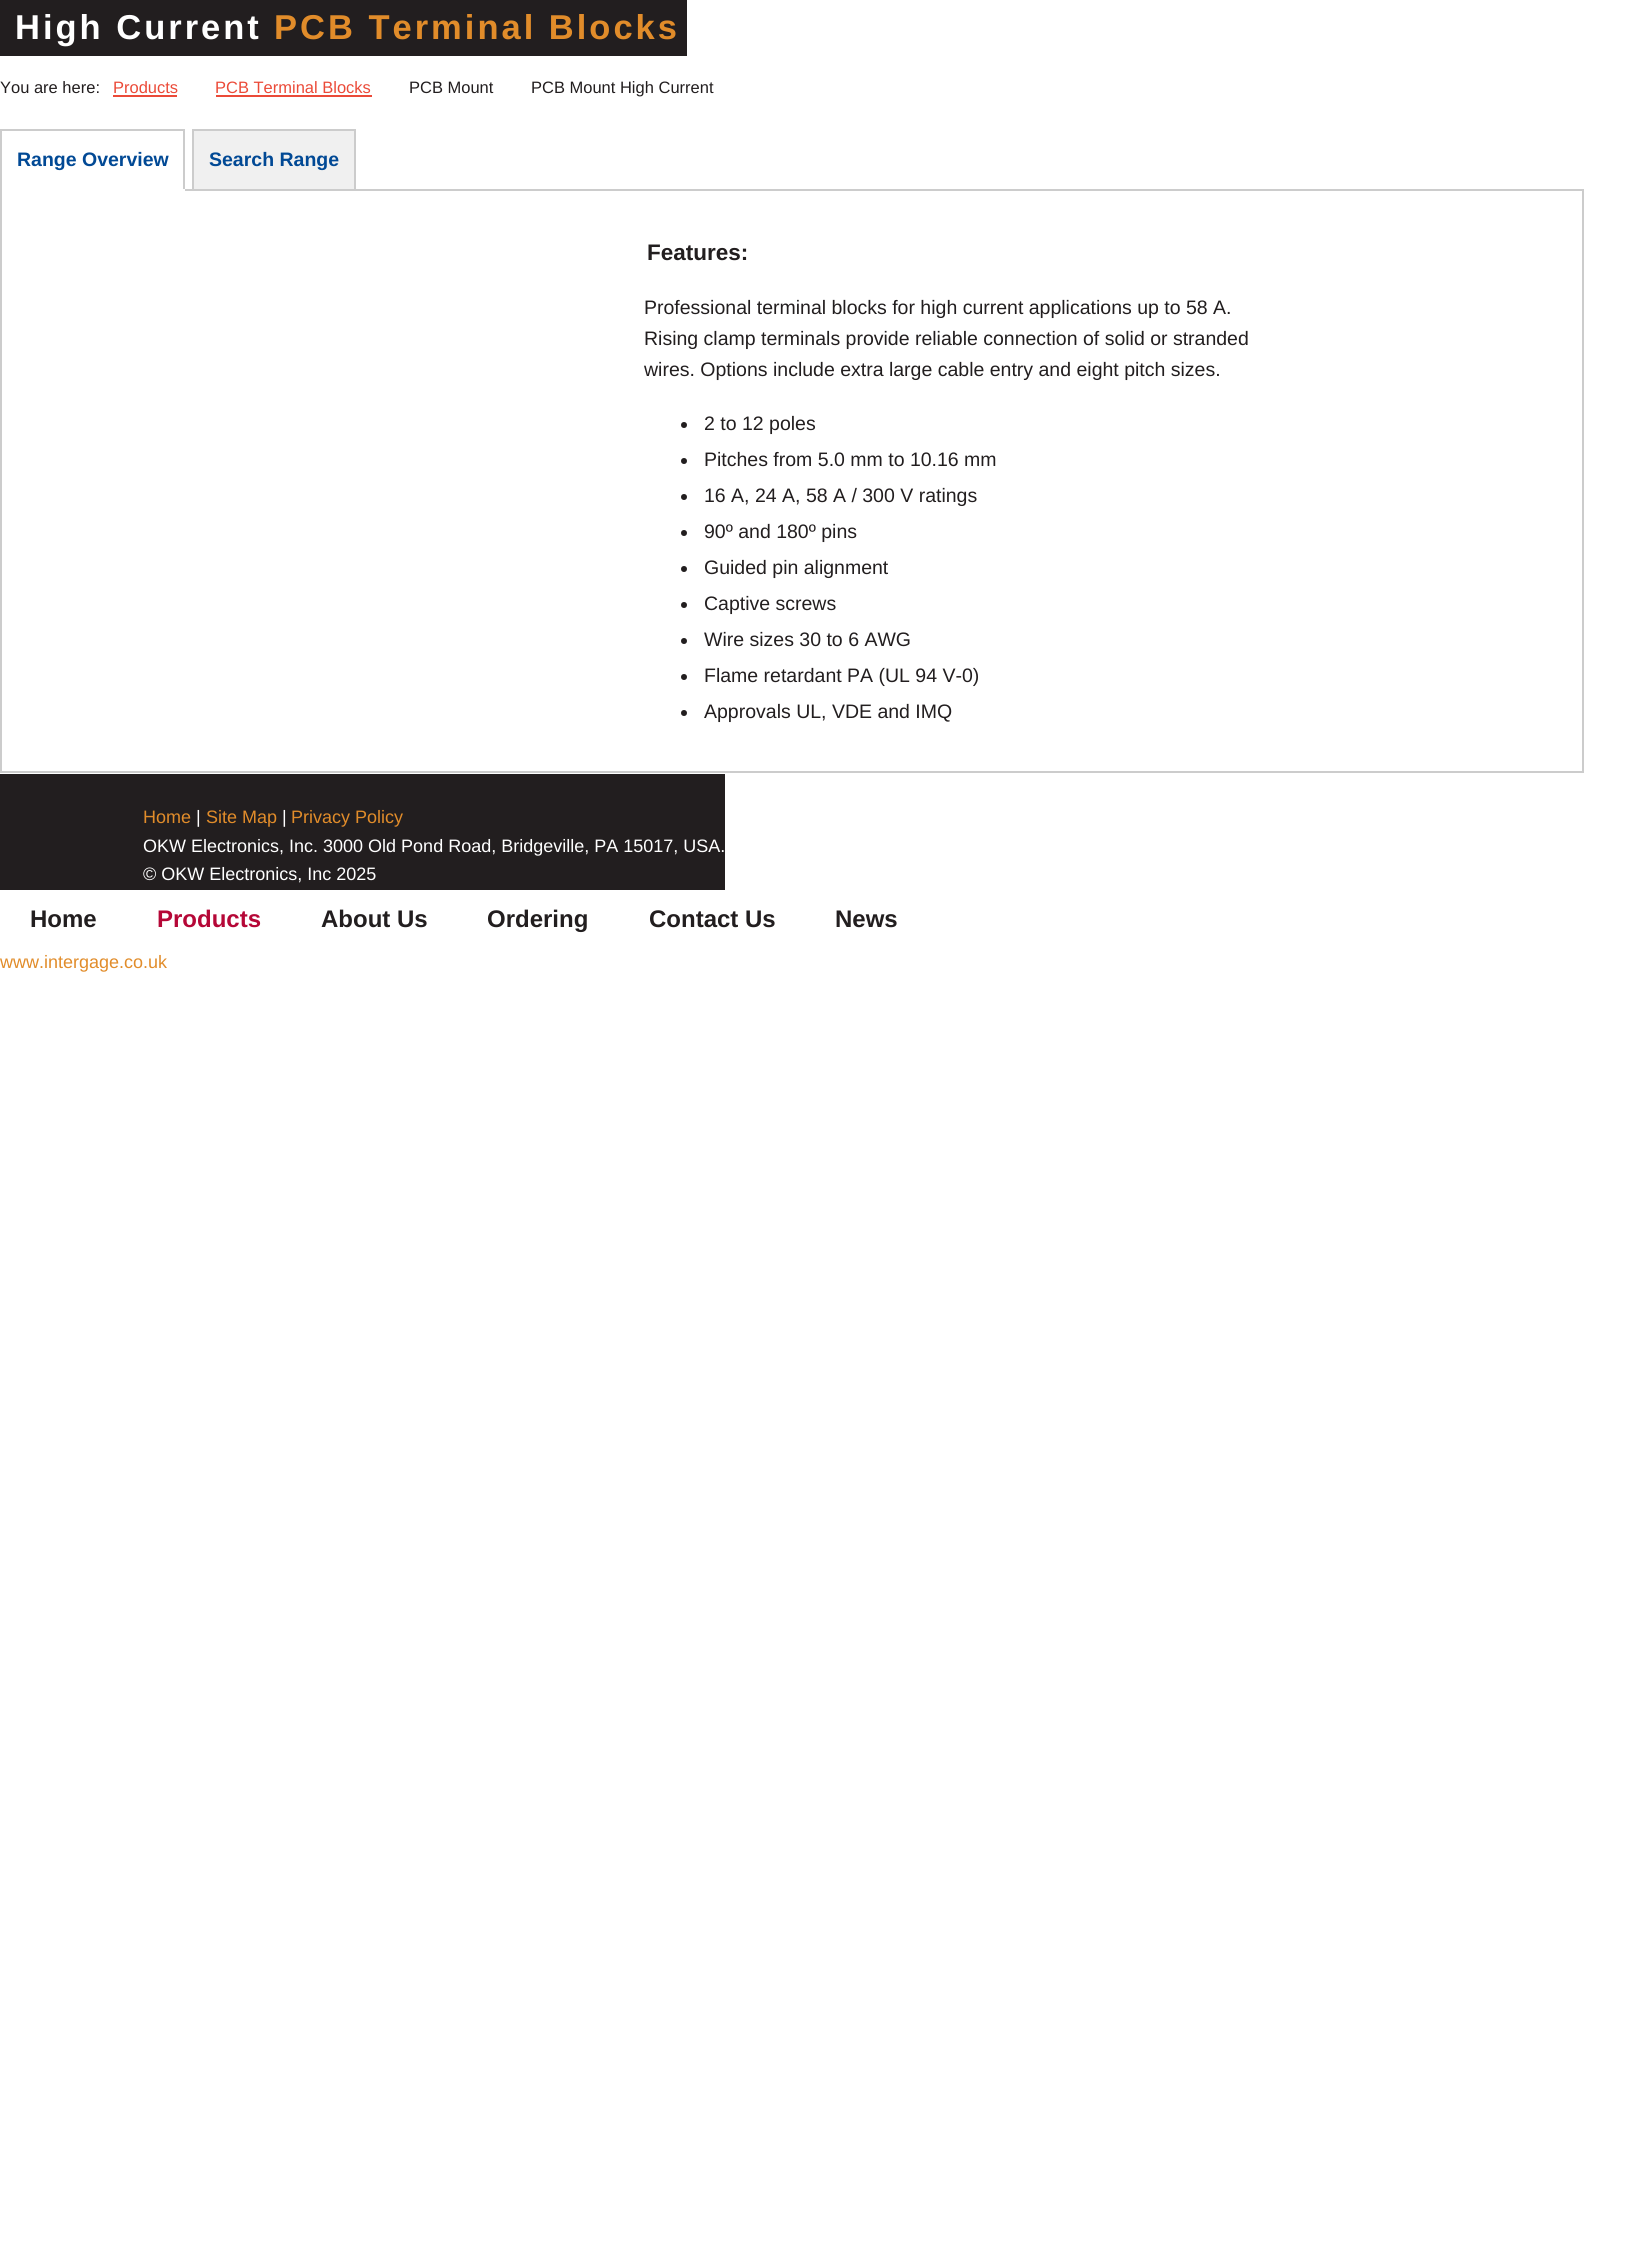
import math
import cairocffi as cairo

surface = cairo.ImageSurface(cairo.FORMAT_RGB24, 1631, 2244)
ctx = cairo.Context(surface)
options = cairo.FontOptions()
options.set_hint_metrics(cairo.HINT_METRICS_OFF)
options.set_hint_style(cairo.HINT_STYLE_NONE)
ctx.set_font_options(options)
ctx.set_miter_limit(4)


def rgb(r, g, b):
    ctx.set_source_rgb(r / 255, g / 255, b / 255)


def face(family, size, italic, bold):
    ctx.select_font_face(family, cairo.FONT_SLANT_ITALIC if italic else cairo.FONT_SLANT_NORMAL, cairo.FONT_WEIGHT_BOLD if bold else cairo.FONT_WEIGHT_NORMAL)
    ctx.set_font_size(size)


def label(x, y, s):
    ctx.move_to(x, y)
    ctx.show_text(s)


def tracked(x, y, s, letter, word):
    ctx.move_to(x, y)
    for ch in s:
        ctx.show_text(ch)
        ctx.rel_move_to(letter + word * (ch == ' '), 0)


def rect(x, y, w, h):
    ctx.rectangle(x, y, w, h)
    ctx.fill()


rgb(255, 255, 255)
ctx.paint()
rgb(34, 30, 31)
rect(0, 0, 687, 56)
face('Liberation Sans', 34.5, 0, 1)
rgb(255, 255, 255)
tracked(15, 39, 'High Current', 3, 0)
rgb(225, 140, 42)
tracked(274, 39, 'PCB Terminal Blocks', 3, 0)
face('Liberation Sans', 16.5, 0, 0)
rgb(34, 30, 31)
label(0, 93, 'You are here:')
rgb(235, 74, 56)
label(113, 93, 'Products')
rect(113, 95, 64, 2)
label(215, 93, 'PCB Terminal Blocks')
rect(216, 95, 156, 2)
rgb(34, 30, 31)
label(409, 93, 'PCB Mount')
label(531, 93, 'PCB Mount High Current')
rgb(204, 204, 204)
rect(0, 129, 185, 2)
ctx.rectangle(1, 190, 1582, 582)
ctx.stroke()
rect(183, 129, 2, 62)
rgb(255, 255, 255)
rect(0, 189, 185, 2)
rgb(204, 204, 204)
rect(0, 129, 2, 62)
face('Liberation Sans', 19.5, 0, 1)
rgb(1, 73, 149)
label(17, 166, 'Range Overview')
rgb(240, 240, 240)
ctx.rectangle(193, 130, 162, 60)
ctx.fill_preserve()
rgb(204, 204, 204)
ctx.stroke()
rgb(1, 73, 149)
label(209, 166, 'Search Range')
face('Liberation Sans', 22.5, 0, 1)
rgb(34, 30, 31)
label(647, 260, 'Features:')
face('Liberation Sans', 19.5, 0, 0)
label(644, 314, 'Professional terminal blocks for high current applications up to 58 A.')
label(644, 345, 'Rising clamp terminals provide reliable connection of solid or stranded')
label(644, 376, 'wires. Options include extra large cable entry and eight pitch sizes.')
ctx.new_path()
ctx.arc(684, 425, 3, 0, 2 * math.pi)
ctx.fill()
label(704, 430, '2 to 12 poles')
ctx.new_path()
ctx.arc(684, 461, 3, 0, 2 * math.pi)
ctx.fill()
label(704, 466, 'Pitches from 5.0 mm to 10.16 mm')
ctx.new_path()
ctx.arc(684, 497, 3, 0, 2 * math.pi)
ctx.fill()
label(704, 502, '16 A, 24 A, 58 A / 300 V ratings')
ctx.new_path()
ctx.arc(684, 533, 3, 0, 2 * math.pi)
ctx.fill()
label(704, 538, '90º and 180º pins')
ctx.new_path()
ctx.arc(684, 569, 3, 0, 2 * math.pi)
ctx.fill()
label(704, 574, 'Guided pin alignment')
ctx.new_path()
ctx.arc(684, 605, 3, 0, 2 * math.pi)
ctx.fill()
label(704, 610, 'Captive screws')
ctx.new_path()
ctx.arc(684, 641, 3, 0, 2 * math.pi)
ctx.fill()
label(704, 646, 'Wire sizes 30 to 6 AWG')
ctx.new_path()
ctx.arc(684, 677, 3, 0, 2 * math.pi)
ctx.fill()
label(704, 682, 'Flame retardant PA (UL 94 V-0)')
ctx.new_path()
ctx.arc(684, 713, 3, 0, 2 * math.pi)
ctx.fill()
label(704, 718, 'Approvals UL, VDE and IMQ')
rect(0, 774, 725, 116)
face('Liberation Sans', 18, 0, 0)
rgb(225, 140, 42)
label(143, 823, 'Home')
rgb(255, 255, 255)
label(196, 823, '|')
rgb(225, 140, 42)
label(206, 823, 'Site Map')
rgb(255, 255, 255)
label(282, 823, '|')
rgb(225, 140, 42)
label(291, 823, 'Privacy Policy')
rgb(255, 255, 255)
label(143, 852, 'OKW Electronics, Inc. 3000 Old Pond Road, Bridgeville, PA 15017, USA.')
label(143, 880, '© OKW Electronics, Inc 2025')
face('Liberation Sans', 24, 0, 1)
rgb(34, 30, 31)
label(30, 927, 'Home')
rgb(181, 7, 55)
label(157, 927, 'Products')
rgb(34, 30, 31)
label(321, 927, 'About Us')
label(487, 927, 'Ordering')
label(649, 927, 'Contact Us')
label(835, 927, 'News')
face('Liberation Sans', 18, 0, 0)
rgb(225, 140, 42)
label(0, 968, 'www.intergage.co.uk')
surface.write_to_png('render.png')
